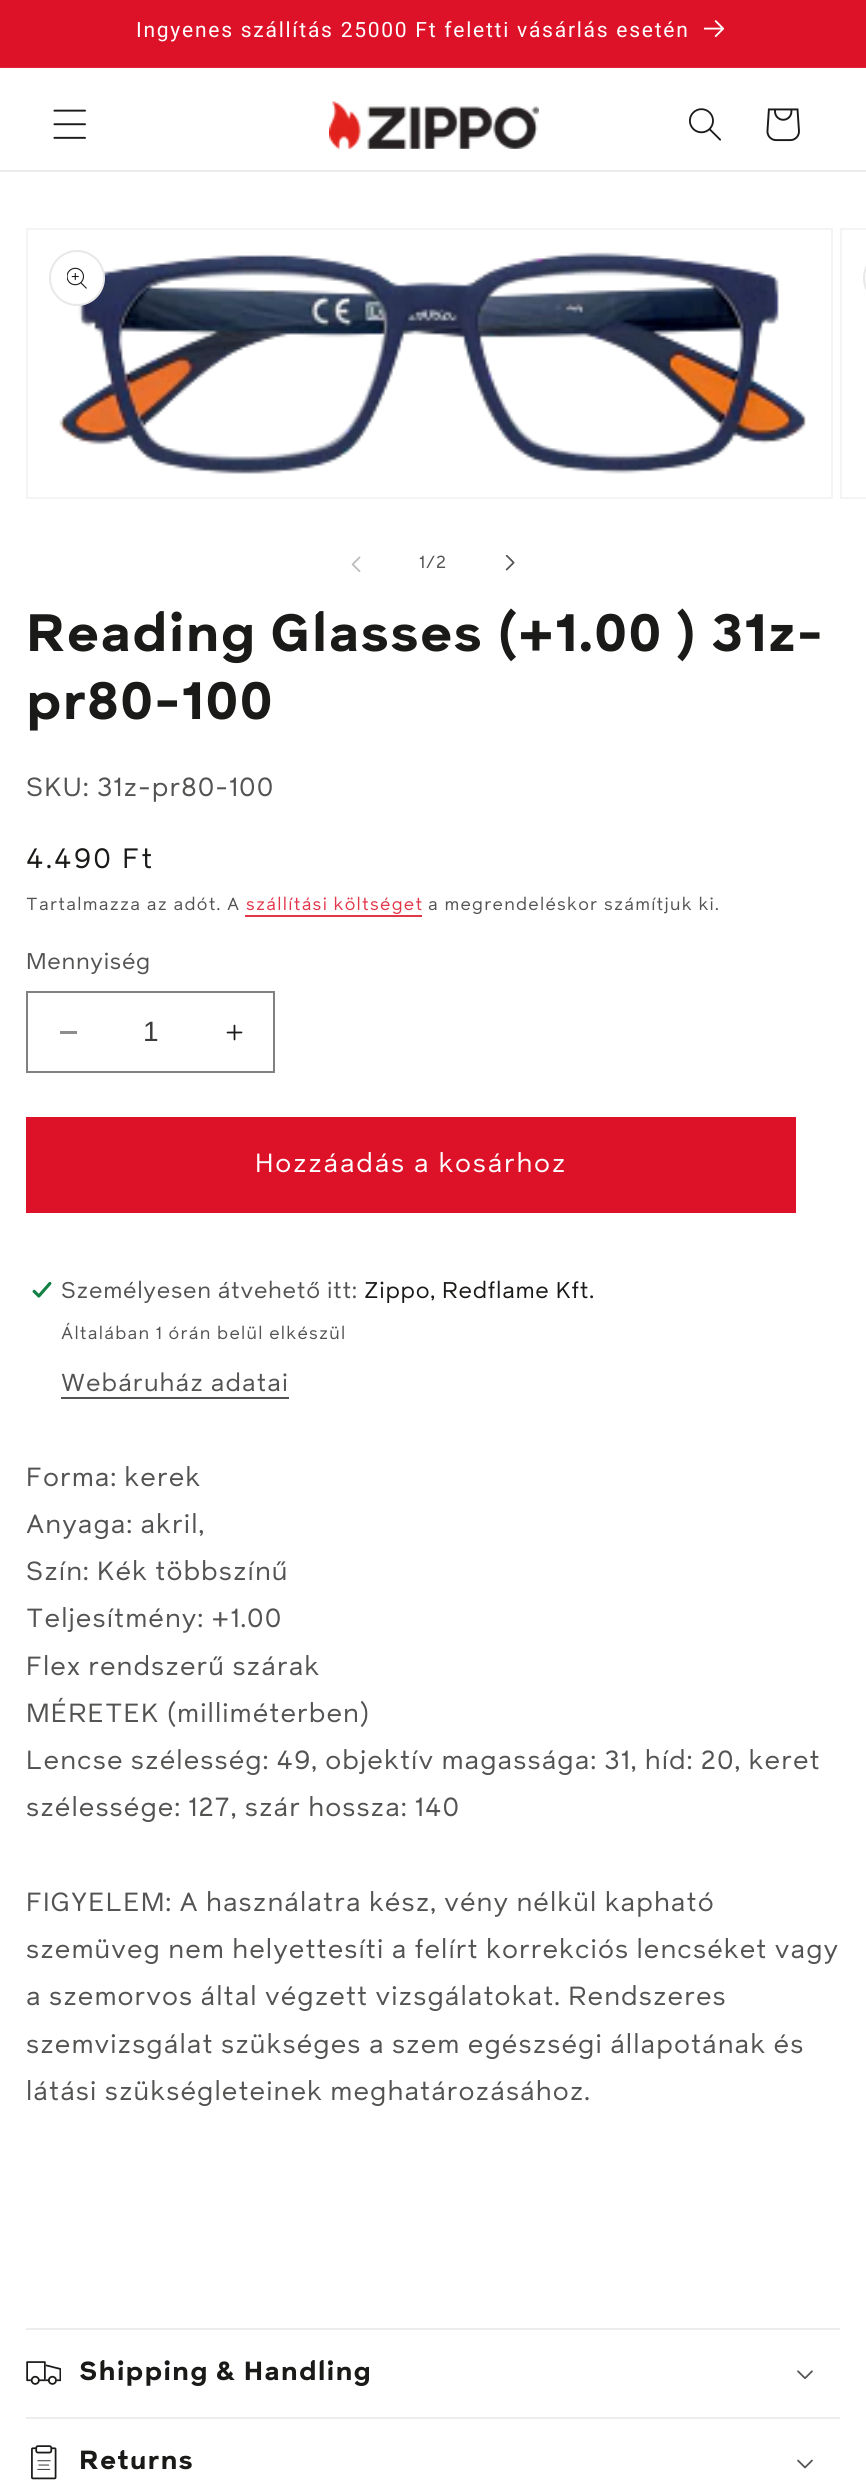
import math
import cairocffi as cairo

surface = cairo.ImageSurface(cairo.FORMAT_RGB24, 866, 2484)
ctx = cairo.Context(surface)
options = cairo.FontOptions()
options.set_hint_metrics(cairo.HINT_METRICS_OFF)
options.set_hint_style(cairo.HINT_STYLE_NONE)
ctx.set_font_options(options)
ctx.set_miter_limit(4)


def rgb(r, g, b):
    ctx.set_source_rgb(r / 255, g / 255, b / 255)


def face(family, size, italic, bold):
    ctx.select_font_face(family, cairo.FONT_SLANT_ITALIC if italic else cairo.FONT_SLANT_NORMAL, cairo.FONT_WEIGHT_BOLD if bold else cairo.FONT_WEIGHT_NORMAL)
    ctx.set_font_size(size)


def label(x, y, s):
    ctx.move_to(x, y)
    ctx.show_text(s)


def tracked(x, y, s, letter, word):
    ctx.move_to(x, y)
    for ch in s:
        ctx.show_text(ch)
        ctx.rel_move_to(letter + word * (ch == ' '), 0)


def rect(x, y, w, h):
    ctx.rectangle(x, y, w, h)
    ctx.fill()


def rrect(x, y, w, h, r):
    ctx.new_sub_path()
    for i, (u, v) in enumerate([(x + w - r, y + h - r), (x + r, y + h - r), (x + r, y + r), (x + w - r, y + r)]):
        ctx.arc(u, v, r, i * math.pi / 2, (i + 1) * math.pi / 2)
    ctx.close_path()


def image(path, x, y, w, h):
    ctx.save()
    ctx.set_source_surface(cairo.ImageSurface.create_from_png(path), x, y)
    ctx.rectangle(x, y, w, h)
    ctx.fill()
    ctx.restore()


rgb(255, 255, 255)
ctx.paint()
rgb(221, 18, 41)
rect(0, 0, 866, 67)
rgb(224, 37, 58)
rect(0, 67, 866, 1)
face('Roboto', 21, 0, 0)
rgb(255, 255, 255)
tracked(136, 37, 'Ingyenes szállítás 25000 Ft feletti vásárlás esetén', 1.75, 0)
image('image0.png', 704, 20, 21, 17)
rgb(237, 237, 237)
rect(0, 170, 866, 2)
image('image1.png', 53, 109, 33, 30)
image('image2.png', 329, 101, 210, 48)
image('image3.png', 689, 108, 32, 33)
image('image4.png', 766, 108, 34, 34)
ctx.rectangle(27, 229, 805, 269)
rgb(244, 244, 243)
ctx.stroke()
image('image6.png', 59, 252, 748, 222)
rgb(255, 255, 255)
ctx.arc(77, 278, 28, 0, 2 * math.pi)
ctx.fill()
ctx.arc(77, 278, 27, 0, 2 * math.pi)
ctx.set_source_rgba(0.102, 0.106, 0.094, 0.1)
ctx.stroke()
image('image5.png', 67, 267, 20, 22)
ctx.rectangle(841, 229, 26, 269)
rgb(244, 244, 243)
ctx.stroke()
rrect(864, 251, 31, 54, 27)
rgb(232, 232, 232)
ctx.stroke()
image('image7.png', 351, 556, 10, 16)
face('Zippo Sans', 17.5, 0, 0)
rgb(83, 84, 82)
tracked(419, 568, '1/2', 1.25, 0)
image('image8.png', 505, 554, 10, 17)
face('Zippo Sans', 52.5, 0, 1)
rgb(26, 27, 24)
tracked(26, 651, 'Reading Glasses (+1.00 ) 31z-', 1.05, 0)
tracked(26, 719, 'pr80-100', 1.05, 0)
face('Zippo Sans', 26.25, 0, 0)
rgb(83, 84, 82)
tracked(26, 796, 'SKU: 31z-pr80-100', 1.05, 0)
face('Zippo Sans', 28, 0, 0)
rgb(26, 27, 24)
tracked(26, 868, '4.490 Ft', 2.25, 0)
face('Zippo Sans', 17.5, 0, 0)
rgb(83, 84, 82)
tracked(26, 910, 'Tartalmazza az adót. A', 1.25, 0)
rgb(226, 54, 73)
tracked(246, 910, 'szállítási költséget', 1.25, 0)
rect(245, 915, 177, 2)
rgb(83, 84, 82)
tracked(428, 910, 'a megrendeléskor számítjuk ki.', 1.25, 0)
face('Zippo Sans', 22.75, 0, 0)
tracked(26, 969, 'Mennyiség', 0.7, 0)
rgb(141, 141, 140)
rect(60, 1031, 17, 3)
image('image9.png', 226, 1024, 17, 17)
ctx.rectangle(27, 992, 247, 80)
rgb(129, 130, 128)
ctx.stroke()
face('Liberation Sans', 28, 0, 0)
rgb(60, 61, 59)
label(143, 1041, '1')
rgb(221, 18, 41)
rect(26, 1117, 770, 96)
face('Zippo Sans', 26.25, 0, 0)
rgb(255, 255, 255)
tracked(255, 1172, 'Hozzáadás a kosárhoz', 1.75, 0)
image('image10.png', 32, 1281, 20, 17)
face('Zippo Sans', 22.75, 0, 0)
rgb(83, 84, 82)
tracked(61, 1298, 'Személyesen átvehető itt:', 0.7, 0)
rgb(26, 27, 24)
tracked(364, 1298, 'Zippo, Redflame Kft.', 0.7, 0)
face('Zippo Sans', 17.5, 0, 0)
rgb(83, 84, 82)
tracked(61, 1339, 'Általában 1 órán belül elkészül', 1.25, 0)
face('Zippo Sans', 24.5, 0, 0)
tracked(61, 1391, 'Webáruház adatai', 1.05, 0)
rect(61, 1397, 228, 2)
face('Zippo Sans', 26.25, 0, 0)
tracked(26, 1486, 'Forma: kerek', 1.05, 0)
tracked(26, 1533, 'Anyaga: akril,', 1.05, 0)
tracked(26, 1580, 'Szín: Kék többszínű', 1.05, 0)
tracked(26, 1627, 'Teljesítmény: +1.00', 1.05, 0)
tracked(26, 1675, 'Flex rendszerű szárak', 1.05, 0)
tracked(26, 1722, 'MÉRETEK (milliméterben)', 1.05, 0)
tracked(26, 1769, 'Lencse szélesség: 49, objektív magassága: 31, híd: 20, keret', 1.05, 0)
tracked(26, 1816, 'szélessége: 127, szár hossza: 140', 1.05, 0)
tracked(26, 1911, 'FIGYELEM: A használatra kész, vény nélkül kapható', 1.05, 0)
tracked(26, 1958, 'szemüveg nem helyettesíti a felírt korrekciós lencséket vagy', 1.05, 0)
tracked(26, 2005, 'a szemorvos által végzett vizsgálatokat. Rendszeres', 1.05, 0)
tracked(26, 2053, 'szemvizsgálat szükséges a szem egészségi állapotának és', 1.05, 0)
tracked(26, 2100, 'látási szükségleteinek meghatározásához.', 1.05, 0)
rgb(237, 237, 237)
rect(26, 2328, 814, 2)
rect(26, 2417, 814, 2)
image('image11.png', 26, 2361, 35, 24)
face('Zippo Sans', 26.25, 0, 1)
rgb(26, 27, 24)
tracked(79, 2380, 'Shipping & Handling', 1.05, 0)
image('image12.png', 797, 2370, 16, 9)
image('image13.png', 31, 2445, 26, 35)
tracked(79, 2469, 'Returns', 1.05, 0)
image('image14.png', 797, 2459, 16, 10)
surface.write_to_png('render.png')
